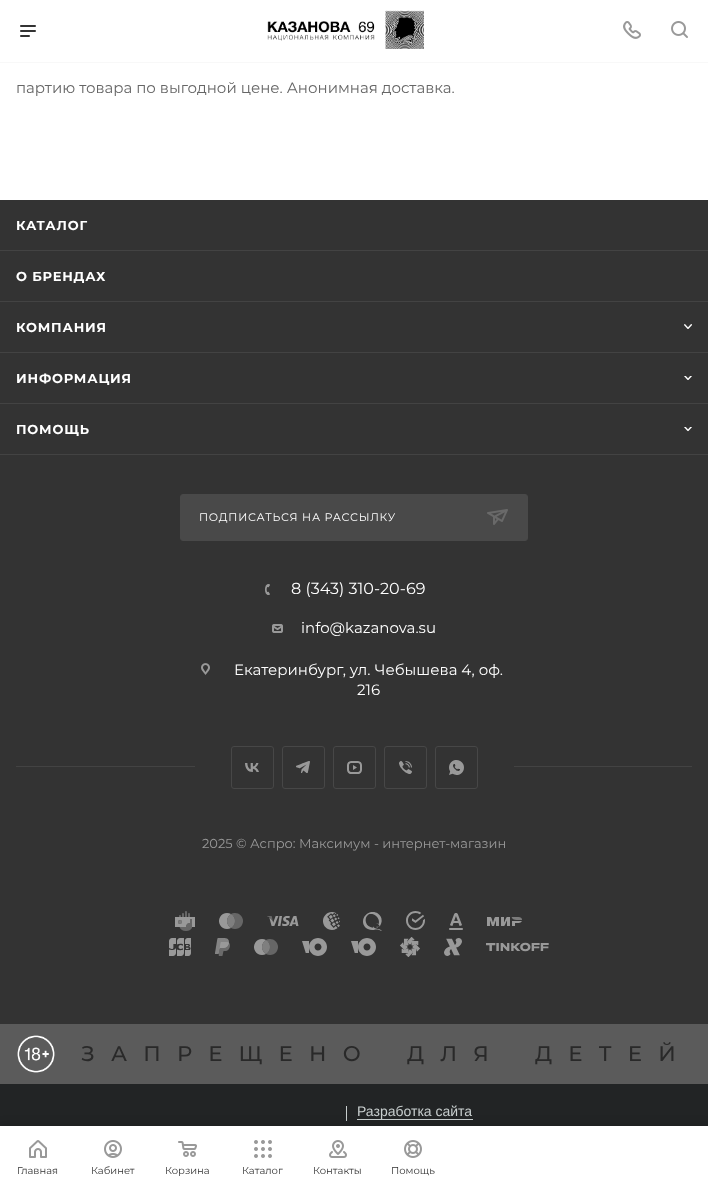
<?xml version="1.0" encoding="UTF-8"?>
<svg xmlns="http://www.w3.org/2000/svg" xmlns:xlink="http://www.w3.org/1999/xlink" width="708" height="1188">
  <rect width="100%" height="100%" fill="#5b5b5b" />
  <rect width="708" height="62" fill="#ffffff" />
  <rect y="62" width="708" height="1" fill="#f8f8f8" />
  <image x="20" y="25" width="16" height="12" xlink:href="image1.png" />
  <image x="267" y="10" width="157" height="39" xlink:href="image2.png" />
  <image x="623" y="21" width="18" height="18" xlink:href="image3.png" />
  <image x="671" y="21" width="17" height="17" xlink:href="image4.png" />
  <rect y="63" width="708" height="137" fill="#ffffff" />
  <rect y="200" width="708" height="824" fill="#333333" />
  <rect y="250" width="708" height="1" fill="#434343" />
  <rect y="301" width="708" height="1" fill="#434343" />
  <rect y="352" width="708" height="1" fill="#434343" />
  <image x="684" y="324" width="8" height="5" xlink:href="image5.png" />
  <rect y="403" width="708" height="1" fill="#434343" />
  <image x="684" y="376" width="8" height="4" xlink:href="image6.png" />
  <rect y="454" width="708" height="1" fill="#434343" />
  <image x="684" y="427" width="8" height="5" xlink:href="image7.png" />
  <rect x="180.5" y="494.5" width="347" height="46" rx="2.5" fill="#494949" stroke="#494949" />
  <image x="487" y="509" width="21" height="16" xlink:href="image8.png" />
  <image x="265" y="584" width="5" height="11" xlink:href="image9.png" />
  <image x="272" y="624" width="11" height="9" xlink:href="image10.png" />
  <image x="201" y="663" width="9" height="12" xlink:href="image11.png" />
  <rect x="16" y="766" width="676" height="1" fill="#434343" />
  <rect x="195" y="766" width="319" height="1" fill="#333333" />
  <image x="245" y="763" width="14" height="9" xlink:href="image12.png" />
  <rect x="231.5" y="746.5" width="42" height="42" rx="2.5" fill="none" stroke="#474747" />
  <image x="296" y="761" width="14" height="12" xlink:href="image13.png" />
  <rect x="282.5" y="746.5" width="42" height="42" rx="2.5" fill="none" stroke="#474747" />
  <image x="347" y="761" width="15" height="13" xlink:href="image14.png" />
  <rect x="333.5" y="746.5" width="42" height="42" rx="2.5" fill="none" stroke="#474747" />
  <image x="399" y="761" width="13" height="13" xlink:href="image15.png" />
  <rect x="384.5" y="746.5" width="42" height="42" rx="2.5" fill="none" stroke="#474747" />
  <image x="449" y="760" width="15" height="15" xlink:href="image16.png" />
  <rect x="435.5" y="746.5" width="42" height="42" rx="2.5" fill="none" stroke="#474747" />
  <image x="175" y="911" width="20" height="20" xlink:href="image17.png" />
  <image x="219" y="913" width="24" height="16" xlink:href="image18.png" />
  <image x="267" y="916" width="32" height="10" xlink:href="image19.png" />
  <image x="323" y="912" width="17" height="18" xlink:href="image20.png" />
  <image x="363" y="912" width="19" height="19" xlink:href="image21.png" />
  <image x="406" y="911" width="19" height="19" xlink:href="image22.png" />
  <image x="449" y="913" width="14" height="17" xlink:href="image23.png" />
  <image x="487" y="917" width="35" height="9" xlink:href="image24.png" />
  <image x="169" y="938" width="22" height="18" xlink:href="image25.png" />
  <image x="215" y="938" width="15" height="18" xlink:href="image26.png" />
  <image x="254" y="939" width="24" height="16" xlink:href="image27.png" />
  <image x="302" y="938" width="25" height="18" xlink:href="image28.png" />
  <image x="351" y="938" width="25" height="18" xlink:href="image28.png" />
  <image x="400" y="937" width="20" height="20" xlink:href="image29.png" />
  <image x="444" y="938" width="18" height="18" xlink:href="image30.png" />
  <image x="486" y="942" width="63" height="10" xlink:href="image31.png" />
  <image x="17" y="1035" width="38" height="38" xlink:href="image32.png" />
  <rect y="1084" width="708" height="42" fill="#222425" />
  <rect x="346" y="1106" width="1" height="15" fill="#c8cece" />
  <rect x="357" y="1119" width="116" height="1" fill="#c8cece" />
  <rect y="1124" width="708" height="62" fill="#000000" fill-opacity="0.15" filter="blur(4px)" />
  <rect y="1126" width="708" height="62" fill="#ffffff" />
  <image x="29" y="1140" width="18" height="18" xlink:href="image33.png" />
  <image x="104" y="1140" width="18" height="18" xlink:href="image34.png" />
  <image x="178" y="1141" width="19" height="16" xlink:href="image35.png" />
  <image x="254" y="1140" width="18" height="18" xlink:href="image36.png" />
  <image x="329" y="1140" width="18" height="18" xlink:href="image37.png" />
  <image x="404" y="1140" width="18" height="18" xlink:href="image38.png" />
  <text x="16" y="93" style="font-family: Montserrat; font-size: 15px; fill: #666666">партию товара по выгодной цене. Анонимная доставка.</text>
  <text x="16" y="230" style="font-family: Montserrat; font-size: 13px; font-weight: bold; letter-spacing: 0.8px; fill: #ffffff">КАТАЛОГ</text>
  <text x="16" y="281" style="font-family: Montserrat; font-size: 13px; font-weight: bold; letter-spacing: 0.8px; fill: #ffffff">О БРЕНДАХ</text>
  <text x="16" y="332" style="font-family: Montserrat; font-size: 13px; font-weight: bold; letter-spacing: 0.8px; fill: #ffffff">КОМПАНИЯ</text>
  <text x="16" y="383" style="font-family: Montserrat; font-size: 13px; font-weight: bold; letter-spacing: 0.8px; fill: #ffffff">ИНФОРМАЦИЯ</text>
  <text x="16" y="434" style="font-family: Montserrat; font-size: 13px; font-weight: bold; letter-spacing: 0.8px; fill: #ffffff">ПОМОЩЬ</text>
  <text x="199" y="521" style="font-family: Montserrat; font-size: 11px; letter-spacing: 0.8px; fill: #ffffff">ПОДПИСАТЬСЯ НА РАССЫЛКУ</text>
  <text x="291" y="594" style="font-family: Montserrat; font-size: 16px; fill: #ffffff">8 (343) 310-20-69</text>
  <text x="301" y="633" style="font-family: Montserrat; font-size: 15px; fill: #ffffff">info@kazanova.su</text>
  <text x="234" y="675" style="font-family: Montserrat; font-size: 15px; fill: #ffffff">Екатеринбург, ул. Чебышева 4, оф.</text>
  <text x="357" y="695" style="font-family: Montserrat; font-size: 15px; fill: #ffffff">216</text>
  <text x="202" y="848" style="font-family: Montserrat; font-size: 13px; fill: #999999">2025 © Аспро: Максимум - интернет-магазин</text>
  <text x="81" y="1061" style="font-family: Montserrat; font-size: 21.25px; font-weight: 500; letter-spacing: 16.25px; fill: #292929">ЗАПРЕЩЕНО</text>
  <text x="407" y="1061" style="font-family: Montserrat; font-size: 21.25px; font-weight: 500; letter-spacing: 16.25px; fill: #292929">ДЛЯ</text>
  <text x="535" y="1061" style="font-family: Montserrat; font-size: 21.25px; font-weight: 500; letter-spacing: 16.25px; fill: #292929">ДЕТЕЙ</text>
  <text x="357" y="1116" style="font-family: Liberation Sans; font-size: 14px; fill: #c8cece">Разработка сайта</text>
  <text x="17" y="1174" style="font-family: Montserrat; font-size: 10px; fill: #333333">Главная</text>
  <text x="91" y="1174" style="font-family: Montserrat; font-size: 10px; fill: #333333">Кабинет</text>
  <text x="165" y="1174" style="font-family: Montserrat; font-size: 10px; fill: #333333">Корзина</text>
  <text x="242" y="1174" style="font-family: Montserrat; font-size: 10px; fill: #333333">Каталог</text>
  <text x="313" y="1174" style="font-family: Montserrat; font-size: 10px; fill: #333333">Контакты</text>
  <text x="391" y="1174" style="font-family: Montserrat; font-size: 10px; fill: #333333">Помощь</text>
</svg>
